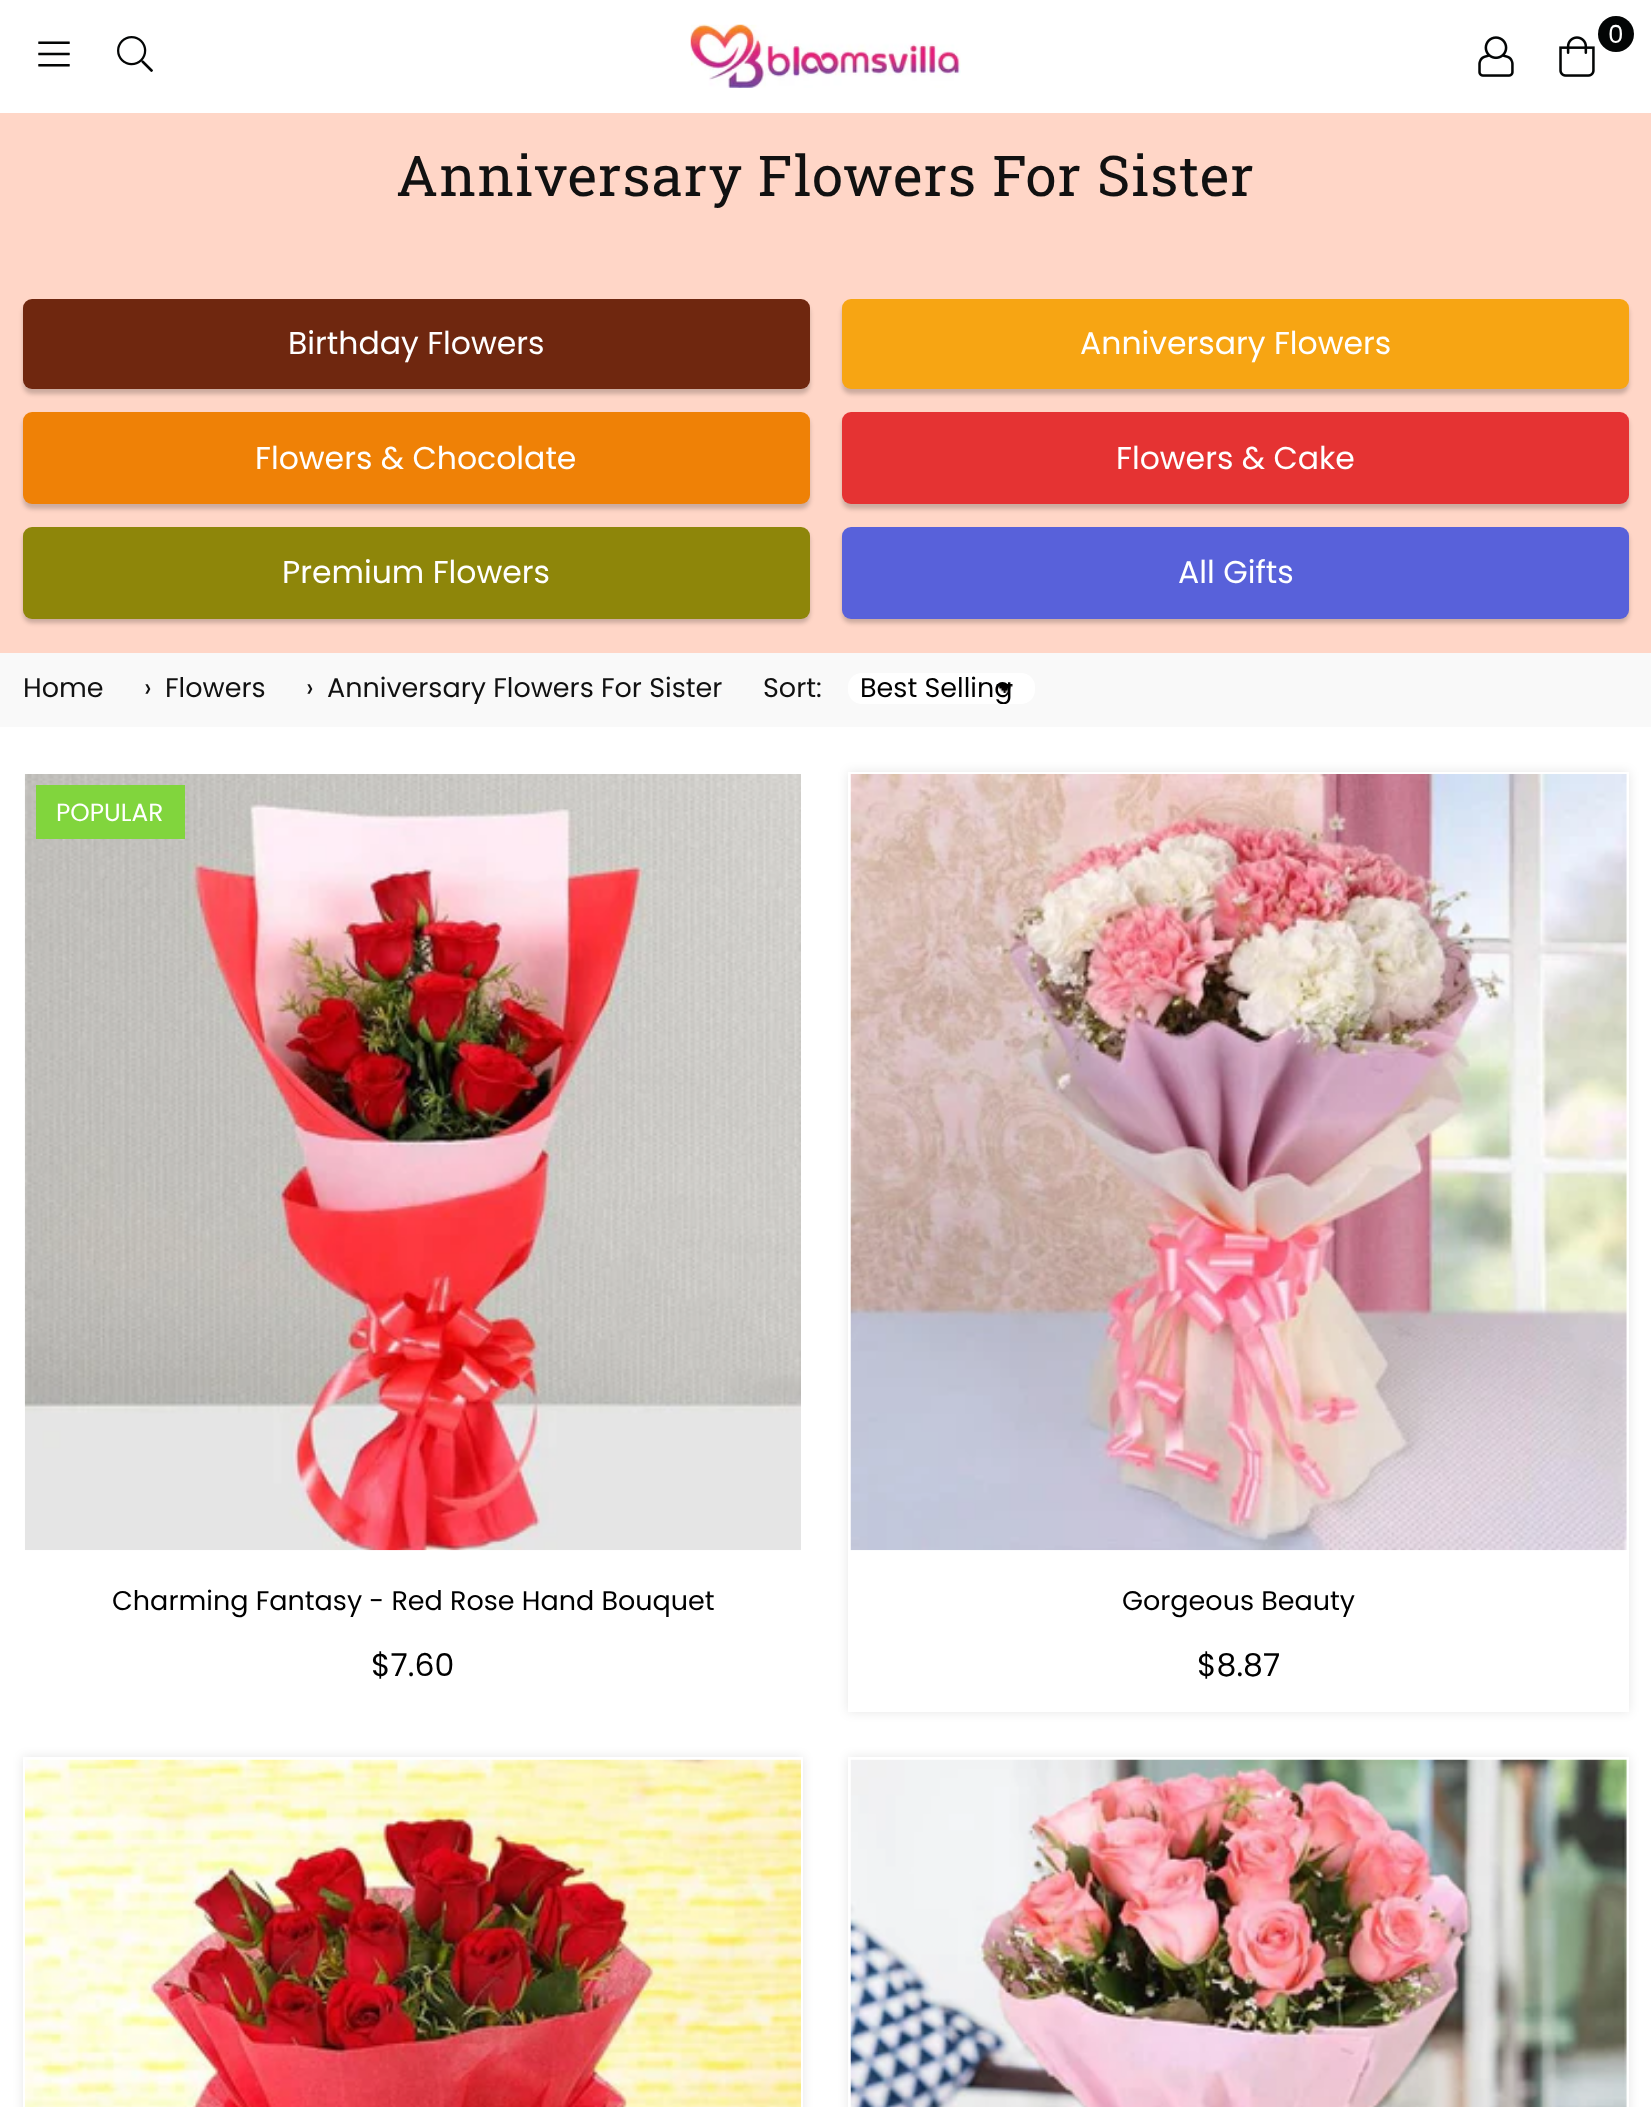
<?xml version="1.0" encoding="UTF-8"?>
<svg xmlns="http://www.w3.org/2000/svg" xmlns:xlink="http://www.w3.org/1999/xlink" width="1651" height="2107">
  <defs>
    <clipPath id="clip1"><path d="M 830 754 h 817 v 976 h -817 z m 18 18 h 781 v 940 h -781 z" clip-rule="evenodd" /></clipPath>
    <clipPath id="clip2"><path d="M 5 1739 h 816 v 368 h -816 z m 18 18 h 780 v 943 h -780 z" clip-rule="evenodd" /></clipPath>
    <clipPath id="clip3"><path d="M 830 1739 h 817 v 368 h -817 z m 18 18 h 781 v 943 h -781 z" clip-rule="evenodd" /></clipPath>
    <clipPath id="clip4"><rect x="860" y="673" width="175" height="31" /></clipPath>
  </defs>
  <rect width="100%" height="100%" fill="#ffffff" />
  <image x="690" y="24" width="271" height="64" xlink:href="image1.png" />
  <circle cx="1616" cy="34" r="18" fill="#030505" />
  <image x="1559" y="36" width="36" height="41" xlink:href="image2.png" />
  <image x="1478" y="36" width="36" height="41" xlink:href="image3.png" />
  <image x="38" y="41" width="32" height="26" xlink:href="image4.png" />
  <image x="117" y="36" width="36" height="36" xlink:href="image5.png" />
  <rect y="113" width="1651" height="540" fill="#ffd6c7" />
  <rect x="23" y="304" width="787" height="90" rx="9" fill="#000000" fill-opacity="0.2" filter="blur(2px)" />
  <rect x="23" y="299" width="787" height="90" rx="9" fill="#6f270f" />
  <rect x="842" y="304" width="787" height="90" rx="9" fill="#000000" fill-opacity="0.2" filter="blur(2px)" />
  <rect x="842" y="299" width="787" height="90" rx="9" fill="#f7a513" />
  <rect x="23" y="416" width="787" height="93" rx="9" fill="#000000" fill-opacity="0.2" filter="blur(2px)" />
  <rect x="23" y="412" width="787" height="92" rx="9" fill="#ef8106" />
  <rect x="842" y="416" width="787" height="93" rx="9" fill="#000000" fill-opacity="0.2" filter="blur(2px)" />
  <rect x="842" y="412" width="787" height="92" rx="9" fill="#e53333" />
  <rect x="23" y="531" width="787" height="92" rx="9" fill="#000000" fill-opacity="0.2" filter="blur(2px)" />
  <rect x="23" y="527" width="787" height="92" rx="9" fill="#8e860a" />
  <rect x="842" y="531" width="787" height="92" rx="9" fill="#000000" fill-opacity="0.2" filter="blur(2px)" />
  <rect x="842" y="527" width="787" height="92" rx="9" fill="#5861da" />
  <rect y="653" width="1651" height="74" fill="#f9f9f9" />
  <rect x="848" y="673" width="187" height="31" rx="14" fill="#ffffff" />
  <image x="996" y="684" width="17" height="9" xlink:href="image6.png" />
  <image x="24" y="774" width="777" height="777" xlink:href="image7.png" />
  <rect x="36" y="785" width="149" height="54" fill="#81d53d" />
  <g clip-path="url(#clip1)">
    <rect x="848" y="772" width="781" height="940" fill="#000000" fill-opacity="0.1" filter="blur(5.5px)" />
  </g>
  <image x="850" y="774" width="777" height="777" xlink:href="image8.png" />
  <g clip-path="url(#clip2)">
    <rect x="23" y="1757" width="780" height="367" fill="#000000" fill-opacity="0.1" filter="blur(5.5px)" />
  </g>
  <image x="24" y="1759" width="777" height="348" xlink:href="image9.png" />
  <g clip-path="url(#clip3)">
    <rect x="848" y="1757" width="781" height="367" fill="#000000" fill-opacity="0.1" filter="blur(5.5px)" />
  </g>
  <image x="850" y="1759" width="777" height="348" xlink:href="image10.png" />
  <text x="1608" y="43" style="font-family: Poppins; font-size: 24.75px; fill: #ffffff">0</text>
  <text x="396" y="196" style="font-family: Roboto Slab; font-size: 56.25px; letter-spacing: 1.1px; fill: #111111">Anniversary Flowers For Sister</text>
  <text x="288" y="354" style="font-family: Poppins; font-size: 31.5px; fill: #ffffff">Birthday Flowers</text>
  <text x="1080" y="354" style="font-family: Poppins; font-size: 31.5px; fill: #ffffff">Anniversary Flowers</text>
  <text x="255" y="469" style="font-family: Poppins; font-size: 31.5px; fill: #ffffff">Flowers &amp; Chocolate</text>
  <text x="1116" y="469" style="font-family: Poppins; font-size: 31.5px; fill: #ffffff">Flowers &amp; Cake</text>
  <text x="282" y="583" style="font-family: Poppins; font-size: 31.5px; fill: #ffffff">Premium Flowers</text>
  <text x="1178" y="583" style="font-family: Poppins; font-size: 31.5px; fill: #ffffff">All Gifts</text>
  <text x="23" y="697" style="font-family: Poppins; font-size: 27px; fill: #111111">Home</text>
  <text x="144" y="697" style="font-family: Poppins; font-size: 27px; fill: #111111">›</text>
  <text x="165" y="697" style="font-family: Poppins; font-size: 27px; fill: #111111">Flowers</text>
  <text x="306" y="697" style="font-family: Poppins; font-size: 27px; fill: #111111">›</text>
  <text x="327" y="697" style="font-family: Poppins; font-size: 27px; fill: #111111">Anniversary Flowers For Sister</text>
  <text x="763" y="697" style="font-family: Poppins; font-size: 27px; fill: #111111">Sort:</text>
  <g clip-path="url(#clip4)">
    <text x="860" y="697" style="font-family: Poppins; font-size: 27px; fill: #000000">Best Selling</text>
  </g>
  <text x="56" y="821" style="font-family: Poppins; font-size: 24.75px; fill: #ffffff">POPULAR</text>
  <text x="112" y="1610" style="font-family: Poppins; font-size: 27px; fill: #000000">Charming Fantasy - Red Rose Hand Bouquet</text>
  <text x="371" y="1676" style="font-family: Poppins; font-size: 31.5px; fill: #000000">$7.60</text>
  <text x="1122" y="1610" style="font-family: Poppins; font-size: 27px; fill: #000000">Gorgeous Beauty</text>
  <text x="1197" y="1676" style="font-family: Poppins; font-size: 31.5px; fill: #000000">$8.87</text>
</svg>
